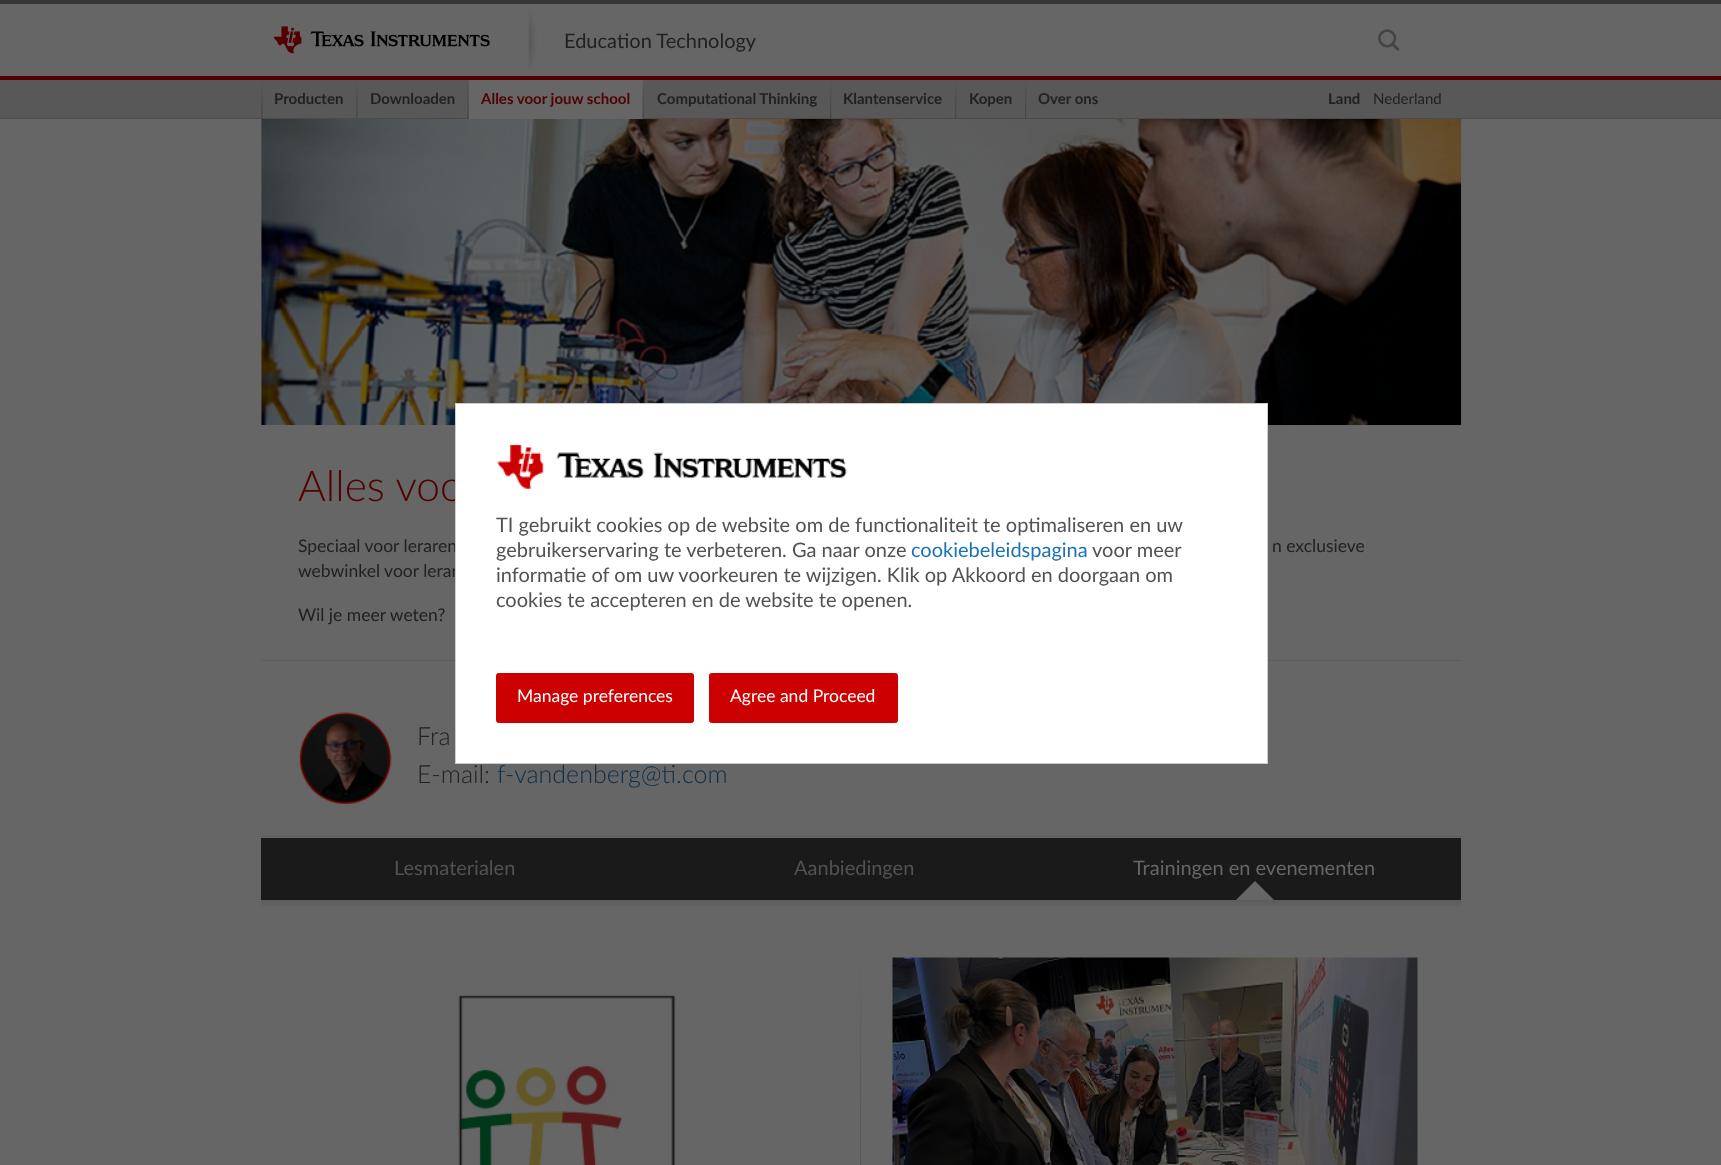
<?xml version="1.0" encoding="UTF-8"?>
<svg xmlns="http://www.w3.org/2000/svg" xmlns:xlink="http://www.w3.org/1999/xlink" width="1721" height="1165">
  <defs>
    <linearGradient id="g1" gradientUnits="userSpaceOnUse" x1="861" y1="900" x2="861" y2="908"><stop offset="0" stop-color="#5c5c5c" /><stop offset="0.25" stop-color="#5e5e5e" /><stop offset="1" stop-color="#666666" /></linearGradient>
    <linearGradient id="g2" gradientUnits="userSpaceOnUse" x1="709" y1="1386" x2="1012" y2="1083"><stop offset="0" stop-color="#666666" /><stop offset="0.5" stop-color="#525252" /><stop offset="1" stop-color="#666666" /></linearGradient>
  </defs>
  <rect width="100%" height="100%" fill="#666666" />
  <rect width="1721" height="4" fill="#363636" />
  <rect y="76" width="1721" height="4" fill="#520000" />
  <image x="528" y="9" width="9" height="62" xlink:href="image1.png" />
  <image x="274" y="26" width="216" height="28" xlink:href="image2.png" />
  <path d="M 1398 49.5 l -5.5 -5.5 m 0 0 c 7.5 -7.5 -3.5 -18.5 -11 -11 c -7 7 4 18 11 11 z" fill="none" stroke="#444444" stroke-width="2.6" stroke-linecap="round" stroke-linejoin="round" />
  <rect y="80" width="1721" height="38" fill="#585858" />
  <rect y="118" width="1721" height="1" fill="#4b4b4b" />
  <image x="261" y="83" width="2" height="36" xlink:href="image3.png" />
  <image x="356" y="83" width="2" height="36" xlink:href="image4.png" />
  <rect x="469" y="80" width="174" height="39" fill="#666666" />
  <image x="467" y="83" width="2" height="36" xlink:href="image5.png" />
  <image x="642" y="83" width="2" height="36" xlink:href="image6.png" />
  <image x="830" y="82" width="2" height="37" xlink:href="image7.png" />
  <image x="955" y="82" width="2" height="37" xlink:href="image8.png" />
  <image x="1025" y="82" width="2" height="37" xlink:href="image8.png" />
  <image x="261" y="119" width="1201" height="306" xlink:href="image9.png" />
  <rect x="261" y="660" width="1200" height="1" fill="#5c5c5c" />
  <rect x="261" y="836" width="1200" height="1" fill="#5c5c5c" />
  <image x="299" y="712" width="93" height="93" xlink:href="image10.png" />
  <rect x="261" y="838" width="1200" height="62" fill="#1a1a1a" />
  <path d="M 1274 900 h -38 l 19 -19 z" fill="#666666" />
  <rect x="261" y="900" width="1200" height="6" fill="url(#g1)" />
  <image x="455" y="994" width="221" height="171" xlink:href="image11.png" />
  <rect x="860" y="969" width="1" height="196" fill="url(#g2)" />
  <image x="892" y="957" width="526" height="208" xlink:href="image12.png" />
  <text x="564" y="48" style="font-family: Lato; font-size: 20px; fill: #212121">Education Technology</text>
  <text x="274" y="104" style="font-family: Lato; font-size: 15px; font-weight: bold; fill: #212121">Producten</text>
  <text x="370" y="104" style="font-family: Lato; font-size: 15px; font-weight: bold; fill: #212121">Downloaden</text>
  <text x="481" y="104" style="font-family: Lato; font-size: 15px; font-weight: bold; fill: #520000">Alles voor jouw school</text>
  <text x="657" y="104" style="font-family: Lato; font-size: 15px; font-weight: bold; fill: #212121">Computational Thinking</text>
  <text x="843" y="104" style="font-family: Lato; font-size: 15px; font-weight: bold; fill: #212121">Klantenservice</text>
  <text x="969" y="104" style="font-family: Lato; font-size: 15px; font-weight: bold; fill: #212121">Kopen</text>
  <text x="1038" y="104" style="font-family: Lato; font-size: 15px; font-weight: bold; fill: #212121">Over ons</text>
  <text x="1328" y="104" style="font-family: Lato; font-size: 15px; font-weight: bold; fill: #212121">Land</text>
  <text x="1373" y="104" style="font-family: Lato; font-size: 15px; fill: #212121">Nederland</text>
  <text x="298" y="501" style="font-family: Lato; font-size: 42.5px; font-weight: 300; fill: #520000">Alles voo</text>
  <text x="298" y="552" style="font-family: Lato; font-size: 17.5px; fill: #212121">Speciaal voor leraren</text>
  <text x="1272" y="552" style="font-family: Lato; font-size: 17.5px; fill: #212121">n exclusieve</text>
  <text x="298" y="577" style="font-family: Lato; font-size: 17.5px; fill: #212121">webwinkel voor lerar</text>
  <text x="298" y="621" style="font-family: Lato; font-size: 17.5px; fill: #212121">Wil je meer weten?</text>
  <text x="417" y="745" style="font-family: Lato; font-size: 25px; font-weight: 300; fill: #212121">Fra</text>
  <text x="417" y="783" style="font-family: Lato; font-size: 25px; font-weight: 300; fill: #212121">E-mail:</text>
  <text x="497" y="783" style="font-family: Lato; font-size: 25px; font-weight: 300; fill: #0a2e48">f-vandenberg@ti.com</text>
  <text x="394" y="875" style="font-family: Lato; font-size: 20px; fill: #525252">Lesmaterialen</text>
  <text x="794" y="875" style="font-family: Lato; font-size: 20px; fill: #525252">Aanbiedingen</text>
  <text x="1133" y="875" style="font-family: Lato; font-size: 20px; fill: #666666">Trainingen en evenementen</text>
  <rect x="455.5" y="403.5" width="812" height="360" fill="#ffffff" stroke="#cccccc" />
  <image x="497" y="444" width="350" height="45" xlink:href="image13.png" />
  <text x="496" y="532" style="font-family: Lato; font-size: 20px; fill: #525252">TI gebruikt cookies op de website om de functionaliteit te optimaliseren en uw</text>
  <text x="496" y="557" style="font-family: Lato; font-size: 20px; fill: #525252">gebruikerservaring te verbeteren. Ga naar onze</text>
  <text x="911" y="557" style="font-family: Lato; font-size: 20px; fill: #1973b4">cookiebeleidspagina</text>
  <text x="1092" y="557" style="font-family: Lato; font-size: 20px; fill: #525252">voor meer</text>
  <text x="496" y="582" style="font-family: Lato; font-size: 20px; fill: #525252">informatie of om uw voorkeuren te wijzigen. Klik op Akkoord en doorgaan om</text>
  <text x="496" y="607" style="font-family: Lato; font-size: 20px; fill: #525252">cookies te accepteren en de website te openen.</text>
  <rect x="496.5" y="673.5" width="197" height="49" rx="2" fill="#cc0000" stroke="#cc0000" />
  <text x="517" y="702" style="font-family: Lato; font-size: 17.5px; fill: #ffffff">Manage preferences</text>
  <rect x="709.5" y="673.5" width="188" height="49" rx="2" fill="#cc0000" stroke="#cc0000" />
  <text x="730" y="702" style="font-family: Lato; font-size: 17.5px; fill: #ffffff">Agree and Proceed</text>
</svg>
